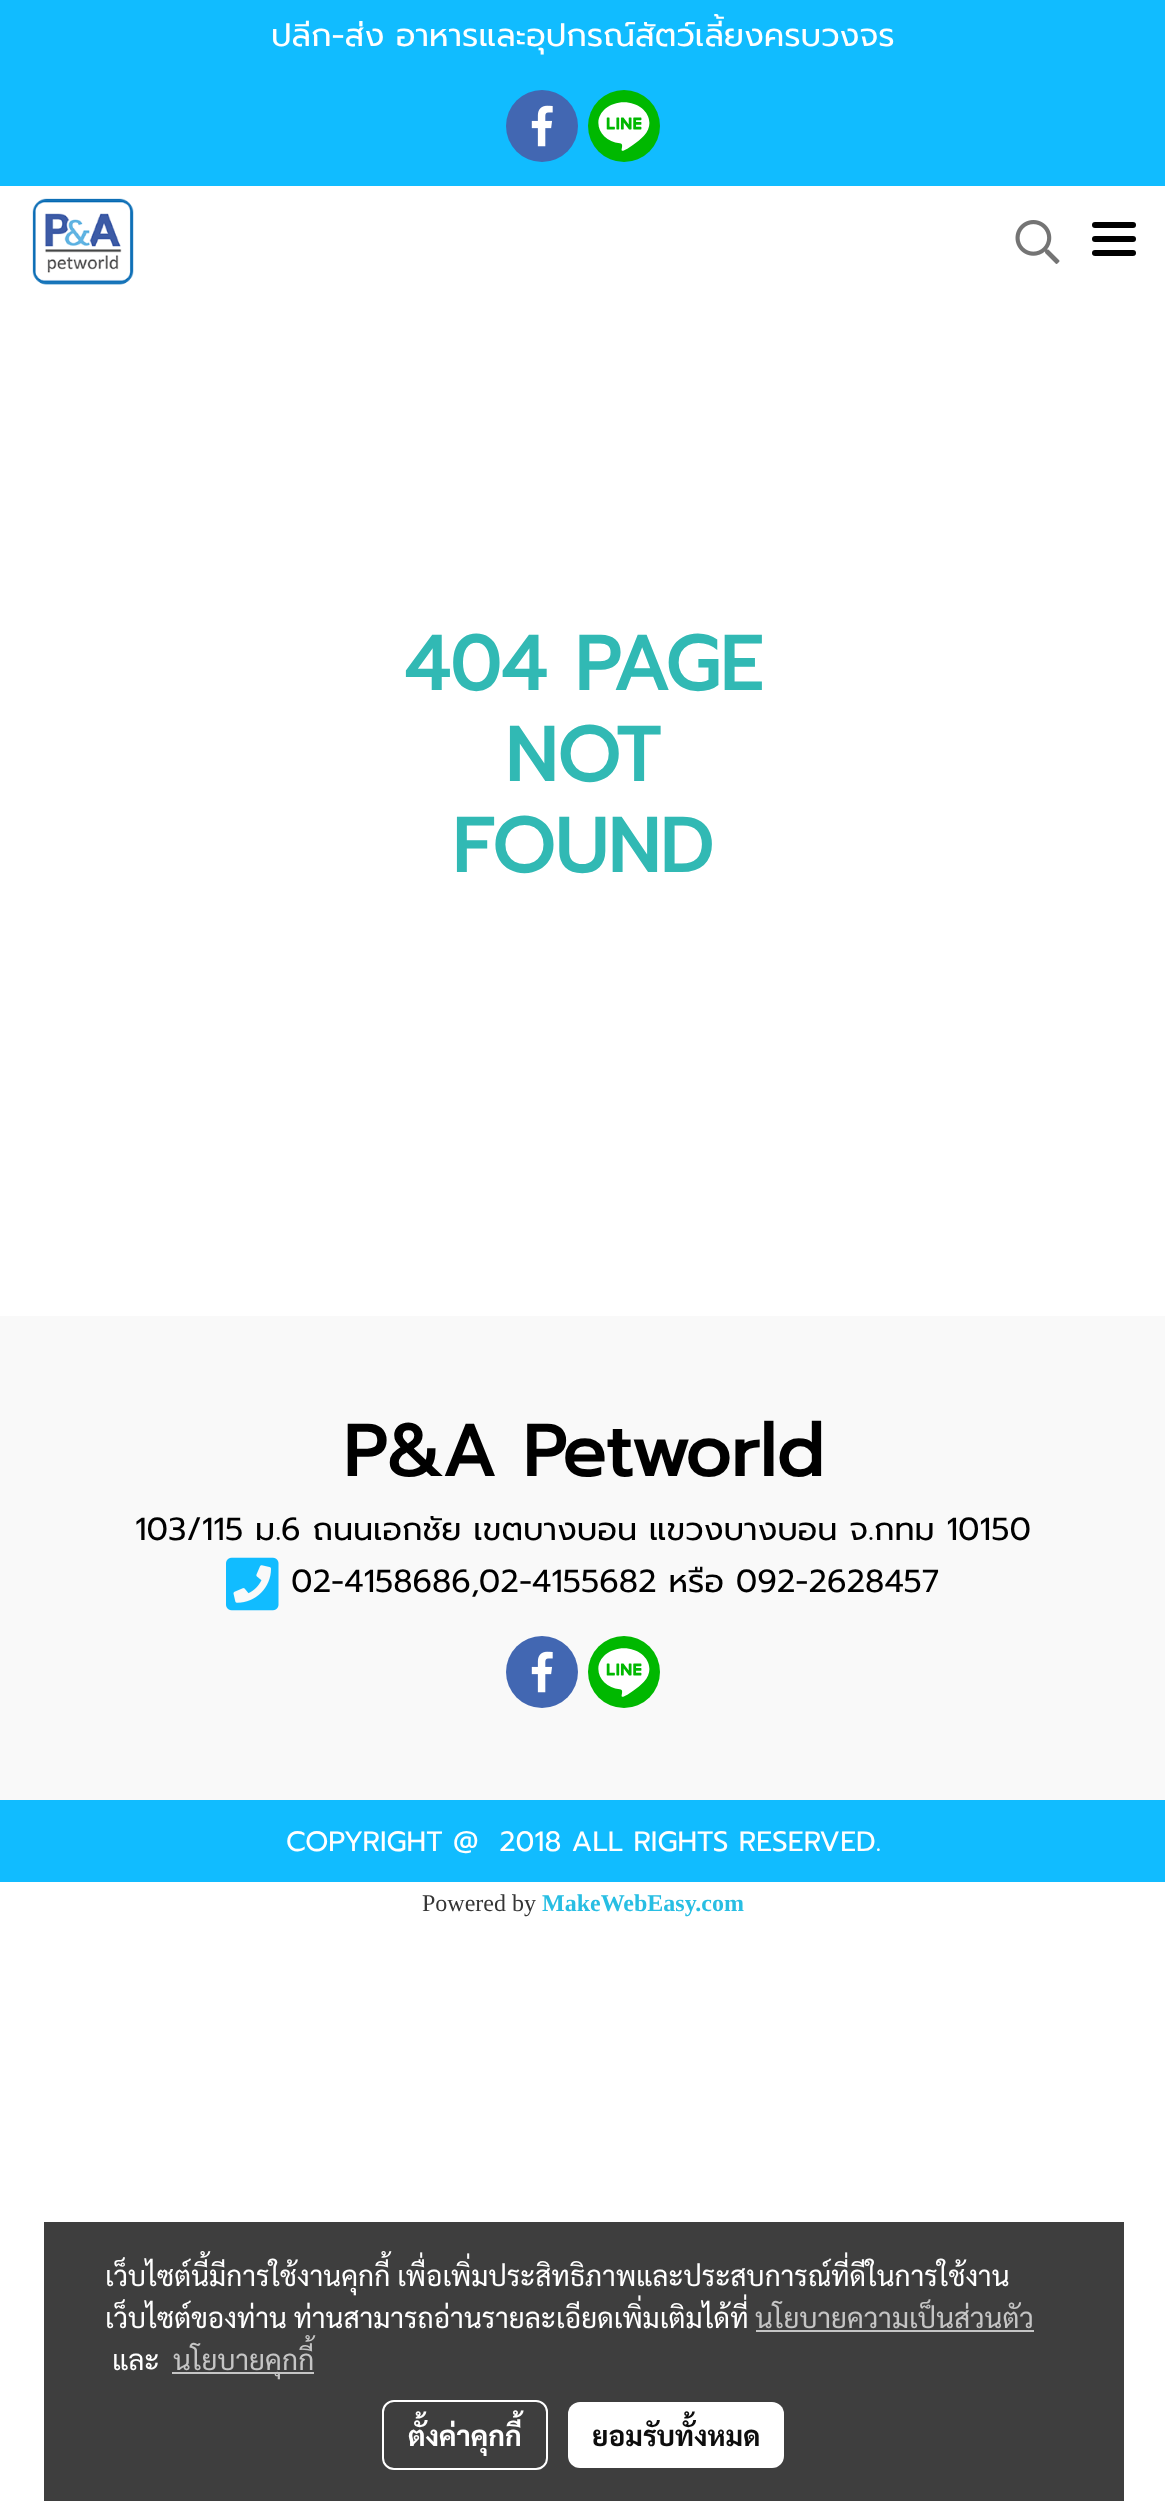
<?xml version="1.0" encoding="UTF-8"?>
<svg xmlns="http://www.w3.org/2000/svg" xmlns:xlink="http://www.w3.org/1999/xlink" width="1165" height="2501">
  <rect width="100%" height="100%" fill="#ffffff" />
  <rect width="1165" height="186" fill="#11bcff" />
  <circle cx="542" cy="126" r="36" fill="#4267b2" />
  <image x="531" y="105" width="22" height="42" xlink:href="image1.png" />
  <circle cx="624" cy="126" r="36" fill="#00b800" />
  <image x="598" y="102" width="52" height="49" xlink:href="image2.png" />
  <image x="32" y="198" width="102" height="87" xlink:href="image3.png" />
  <image x="1015" y="220" width="45" height="44" xlink:href="image4.png" />
  <rect x="1092" y="236" width="44" height="6" rx="3" fill="#000000" />
  <rect x="1092" y="222" width="44" height="6" rx="3" fill="#000000" />
  <rect x="1092" y="250" width="44" height="6" rx="3" fill="#000000" />
  <rect y="1316" width="1165" height="484" fill="#f9f9f9" />
  <image x="226" y="1557" width="53" height="54" xlink:href="image5.png" />
  <circle cx="542" cy="1672" r="36" fill="#4267b2" />
  <image x="531" y="1651" width="22" height="42" xlink:href="image1.png" />
  <circle cx="624" cy="1672" r="36" fill="#00b800" />
  <image x="598" y="1648" width="52" height="49" xlink:href="image6.png" />
  <rect y="1800" width="1165" height="82" fill="#11bcff" />
  <rect x="44" y="2222" width="1080" height="279" fill="#3e3e3e" />
  <rect x="756" y="2330" width="278" height="2" fill="#c5c5c5" />
  <rect x="172" y="2372" width="142" height="2" fill="#c5c5c5" />
  <rect x="383" y="2401" width="164" height="68" rx="11" fill="none" stroke="#ffffff" stroke-width="2" />
  <rect x="568" y="2402" width="216" height="66" rx="12" fill="#ffffff" />
  <text x="271" y="46" style="font-family: Prompt; font-size: 32px; fill: #ffffff">ปลีก-ส่ง อาหารและอุปกรณ์สัตว์เลี้ยงครบวงจร</text>
  <text x="404" y="690" style="font-family: Prompt; font-size: 76px; font-weight: bold; fill: #31b9b4">404 PAGE</text>
  <text x="505" y="781" style="font-family: Prompt; font-size: 76px; font-weight: bold; fill: #31b9b4">NOT</text>
  <text x="452" y="872" style="font-family: Prompt; font-size: 76px; font-weight: bold; fill: #31b9b4">FOUND</text>
  <text x="343" y="1476" style="font-family: Prompt; font-size: 72px; font-weight: bold; fill: #000000">P&amp;A Petworld</text>
  <text x="135" y="1540" style="font-family: Prompt; font-size: 32px; fill: #000000">103/115 ม.6 ถนนเอกชัย เขตบางบอน แขวงบางบอน จ.กทม 10150</text>
  <text x="291" y="1592" style="font-family: Prompt; font-size: 32px; fill: #000000">02-4158686,02-4155682 หรือ 092-2628457</text>
  <text x="286" y="1851" style="font-family: Prompt; font-size: 28px; fill: #ffffff" xml:space="preserve">COPYRIGHT @  2018 ALL RIGHTS RESERVED.</text>
  <text x="422" y="1911" style="font-family: Liberation Serif; font-size: 24px; fill: #353535">Powered by</text>
  <text x="542" y="1911" style="font-family: Liberation Serif; font-size: 24px; font-weight: bold; fill: #28bee3">MakeWebEasy.com</text>
  <text x="105" y="2286" style="font-family: Sarabun; font-size: 28px; fill: #ffffff">เว็บไซต์นี้มีการใช้งานคุกกี้ เพื่อเพิ่มประสิทธิภาพและประสบการณ์ที่ดีในการใช้งาน</text>
  <text x="105" y="2328" style="font-family: Sarabun; font-size: 28px; fill: #ffffff">เว็บไซต์ของท่าน ท่านสามารถอ่านรายละเอียดเพิ่มเติมได้ที่</text>
  <text x="755" y="2328" style="font-family: Sarabun; font-size: 28px; fill: #c5c5c5">นโยบายความเป็นส่วนตัว</text>
  <text x="112" y="2370" style="font-family: Sarabun; font-size: 28px; fill: #ffffff">และ</text>
  <text x="173" y="2370" style="font-family: Sarabun; font-size: 28px; fill: #c5c5c5">นโยบายคุกกี้</text>
  <text x="408" y="2446" style="font-family: Sarabun; font-size: 28px; font-weight: bold; fill: #ffffff">ตั้งค่าคุกกี้</text>
  <text x="592" y="2446" style="font-family: Sarabun; font-size: 28px; font-weight: bold; fill: #0d0d0d">ยอมรับทั้งหมด</text>
</svg>
